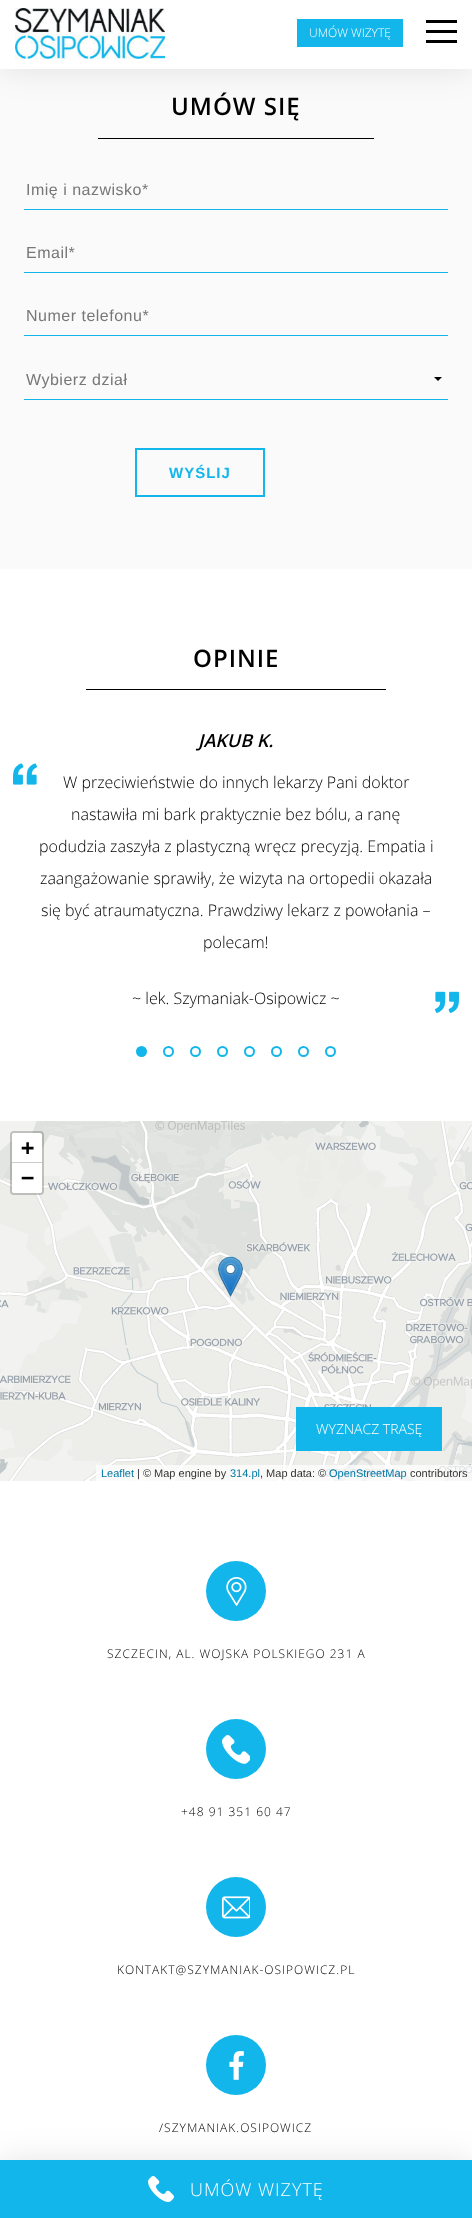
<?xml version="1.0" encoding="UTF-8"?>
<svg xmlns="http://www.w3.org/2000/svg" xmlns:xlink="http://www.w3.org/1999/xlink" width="472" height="2218">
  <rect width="100%" height="100%" fill="#ffffff" />
  <rect y="69" width="472" height="500" fill="#fafafa" />
  <rect width="472" height="69" fill="#000000" fill-opacity="0.1" filter="blur(16px)" />
  <rect width="472" height="69" fill="#ffffff" />
  <image x="15" y="8" width="150" height="51" xlink:href="image1.png" />
  <rect x="297" y="19" width="106" height="28" fill="#13b6eb" />
  <rect x="426" y="20" width="31" height="3" fill="#000000" />
  <rect x="426" y="30" width="31" height="3" fill="#000000" />
  <rect x="426" y="40" width="31" height="3" fill="#000000" />
  <rect x="98" y="138" width="276" height="1" fill="#000000" />
  <rect x="24" y="209" width="424" height="1" fill="#13b6eb" />
  <rect x="24" y="272" width="424" height="1" fill="#13b6eb" />
  <rect x="24" y="335" width="424" height="1" fill="#13b6eb" />
  <path d="M 438 381 l -4 -4 h 8 z" fill="#000000" />
  <rect x="24" y="399" width="424" height="1" fill="#13b6eb" />
  <rect x="136" y="449" width="128" height="47" fill="none" stroke="#13b6eb" stroke-width="2" />
  <rect x="86" y="689" width="300" height="1" fill="#000000" />
  <image x="13" y="763" width="24" height="22" xlink:href="image2.png" />
  <image x="435" y="991" width="24" height="22" xlink:href="image3.png" />
  <circle cx="141.5" cy="1051.5" r="4.5" fill="#13b6eb" stroke="#13b6eb" stroke-width="2" />
  <circle cx="168.5" cy="1051.5" r="4.5" fill="none" stroke="#13b6eb" stroke-width="2" />
  <circle cx="195.5" cy="1051.5" r="4.5" fill="none" stroke="#13b6eb" stroke-width="2" />
  <circle cx="222.5" cy="1051.5" r="4.5" fill="none" stroke="#13b6eb" stroke-width="2" />
  <circle cx="249.5" cy="1051.5" r="4.5" fill="none" stroke="#13b6eb" stroke-width="2" />
  <circle cx="276.5" cy="1051.5" r="4.5" fill="none" stroke="#13b6eb" stroke-width="2" />
  <circle cx="303.5" cy="1051.5" r="4.5" fill="none" stroke="#13b6eb" stroke-width="2" />
  <circle cx="330.5" cy="1051.5" r="4.5" fill="none" stroke="#13b6eb" stroke-width="2" />
  <image x="0" y="1121" width="200" height="4" xlink:href="image4.png" />
  <image x="200" y="1121" width="256" height="4" xlink:href="image5.png" />
  <rect x="456" y="1121" width="16" height="4" fill="#f2f3f0" />
  <image x="0" y="1125" width="200" height="256" xlink:href="image6.png" />
  <image x="200" y="1125" width="256" height="256" xlink:href="image7.png" />
  <image x="456" y="1125" width="16" height="256" xlink:href="image8.png" />
  <image x="0" y="1381" width="200" height="100" xlink:href="image9.png" />
  <image x="200" y="1381" width="256" height="100" xlink:href="image10.png" />
  <image x="456" y="1381" width="16" height="100" xlink:href="image11.png" />
  <image x="218" y="1256" width="25" height="41" xlink:href="image12.png" />
  <rect x="11" y="1132" width="32" height="62" rx="3" fill="none" stroke="#000000" stroke-opacity="0.2" stroke-width="2" />
  <path d="M 14 1133 h 26 c 1 0 2 1 2 2 v 28 h -30 v -28 c 0 -1 1 -2 2 -2 z" fill="#ffffff" />
  <rect x="12" y="1162" width="30" height="1" fill="#cccccc" />
  <path d="M 12 1163 h 30 v 28 c 0 1 -1 2 -2 2 h -26 c -1 0 -2 -1 -2 -2 z" fill="#ffffff" />
  <rect x="96" y="1465" width="376" height="16" fill="#ffffff" fill-opacity="0.7" />
  <rect x="296" y="1407" width="146" height="44" fill="#13b6eb" />
  <circle cx="236" cy="1591" r="28.5" fill="none" stroke="#e7f8fd" />
  <circle cx="236" cy="1591" r="30" fill="#13b6eb" />
  <image x="226" y="1577" width="21" height="29" xlink:href="image13.png" />
  <circle cx="236" cy="1749" r="28.5" fill="none" stroke="#e7f8fd" />
  <circle cx="236" cy="1749" r="30" fill="#13b6eb" />
  <image x="222" y="1735" width="28" height="29" xlink:href="image14.png" />
  <circle cx="236" cy="1907" r="28.5" fill="none" stroke="#e7f8fd" />
  <circle cx="236" cy="1907" r="30" fill="#13b6eb" />
  <image x="222" y="1896" width="28" height="23" xlink:href="image15.png" />
  <circle cx="236" cy="2065" r="28.5" fill="none" stroke="#e7f8fd" />
  <circle cx="236" cy="2065" r="30" fill="#13b6eb" />
  <image x="229" y="2051" width="15" height="29" xlink:href="image16.png" />
  <rect y="2160" width="472" height="58" fill="#000000" fill-opacity="0.1" filter="blur(16px)" />
  <rect y="2160" width="472" height="58" fill="#13b6eb" />
  <image x="148" y="2176" width="26" height="26" xlink:href="image17.png" />
  <text x="309" y="37" style="font-family: Open Sans; font-size: 12px; font-weight: 300; fill: #ffffff">UMÓW WIZYTĘ</text>
  <text x="171" y="115" style="font-family: Open Sans; font-size: 24px; font-weight: 600; letter-spacing: 1px; fill: #000000">UMÓW SIĘ</text>
  <text x="26" y="195" style="font-family: Liberation Sans; font-size: 16px; letter-spacing: 0.5px; fill: #777777">Imię i nazwisko*</text>
  <text x="26" y="258" style="font-family: Liberation Sans; font-size: 16px; letter-spacing: 0.5px; fill: #777777">Email*</text>
  <text x="26" y="321" style="font-family: Liberation Sans; font-size: 16px; letter-spacing: 0.5px; fill: #777777">Numer telefonu*</text>
  <text x="26" y="385" style="font-family: Liberation Sans; font-size: 16px; letter-spacing: 0.5px; fill: #777777">Wybierz dział</text>
  <text x="169" y="478" style="font-family: Liberation Sans; font-size: 15px; font-weight: bold; letter-spacing: 1px; fill: #13b6eb">WYŚLIJ</text>
  <text x="193" y="667" style="font-family: Open Sans; font-size: 24px; font-weight: 600; letter-spacing: 1px; fill: #000000">OPINIE</text>
  <text x="198" y="747" style="font-family: Open Sans; font-size: 18px; font-weight: 600; font-style: italic; fill: #000000">JAKUB K.</text>
  <text x="63" y="788" style="font-family: Open Sans; font-size: 16px; font-weight: 300; fill: #000000">W przeciwieństwie do innych lekarzy Pani doktor</text>
  <text x="71" y="820" style="font-family: Open Sans; font-size: 16px; font-weight: 300; fill: #000000">nastawiła mi bark praktycznie bez bólu, a ranę</text>
  <text x="39" y="852" style="font-family: Open Sans; font-size: 16px; font-weight: 300; fill: #000000">podudzia zaszyła z plastyczną wręcz precyzją. Empatia i</text>
  <text x="40" y="884" style="font-family: Open Sans; font-size: 16px; font-weight: 300; fill: #000000">zaangażowanie sprawiły, że wizyta na ortopedii okazała</text>
  <text x="41" y="916" style="font-family: Open Sans; font-size: 16px; font-weight: 300; fill: #000000">się być atraumatyczna. Prawdziwy lekarz z powołania –</text>
  <text x="203" y="948" style="font-family: Open Sans; font-size: 16px; font-weight: 300; fill: #000000">polecam!</text>
  <text x="132" y="1004" style="font-family: Open Sans; font-size: 16px; font-weight: 300; fill: #000000">~ lek. Szymaniak-Osipowicz ~</text>
  <text x="21" y="1155" style="font-family: DejaVu Sans Mono; font-size: 22px; font-weight: bold; fill: #000000">+</text>
  <text x="21" y="1185" style="font-family: DejaVu Sans Mono; font-size: 22px; font-weight: bold; fill: #000000">−</text>
  <text x="101" y="1477" style="font-family: Liberation Sans; font-size: 11px; fill: #0078a8">Leaflet</text>
  <text x="137" y="1477" style="font-family: Liberation Sans; font-size: 11px; fill: #333333">| © Map engine by</text>
  <text x="230" y="1477" style="font-family: Liberation Sans; font-size: 11px; fill: #0078a8">314.pl</text>
  <text x="260" y="1477" style="font-family: Liberation Sans; font-size: 11px; fill: #333333">, Map data: ©</text>
  <text x="329" y="1477" style="font-family: Liberation Sans; font-size: 11px; fill: #0078a8">OpenStreetMap</text>
  <text x="410" y="1477" style="font-family: Liberation Sans; font-size: 11px; fill: #333333">contributors</text>
  <text x="316" y="1434" style="font-family: Open Sans; font-size: 14px; font-weight: 300; fill: #ffffff">WYZNACZ TRASĘ</text>
  <text x="107" y="1658" style="font-family: Open Sans; font-size: 12px; font-weight: 300; letter-spacing: 1px; fill: #000000">SZCZECIN, AL. WOJSKA POLSKIEGO 231 A</text>
  <text x="181" y="1816" style="font-family: Open Sans; font-size: 12px; font-weight: 300; letter-spacing: 1px; fill: #000000">+48 91 351 60 47</text>
  <text x="117" y="1974" style="font-family: Open Sans; font-size: 12px; font-weight: 300; letter-spacing: 1px; fill: #000000">KONTAKT@SZYMANIAK-OSIPOWICZ.PL</text>
  <text x="159" y="2132" style="font-family: Open Sans; font-size: 12px; font-weight: 300; letter-spacing: 1px; fill: #000000">/SZYMANIAK.OSIPOWICZ</text>
  <text x="190" y="2196" style="font-family: Open Sans; font-size: 18px; font-weight: 300; letter-spacing: 1px; fill: #ffffff">UMÓW WIZYTĘ</text>
</svg>
